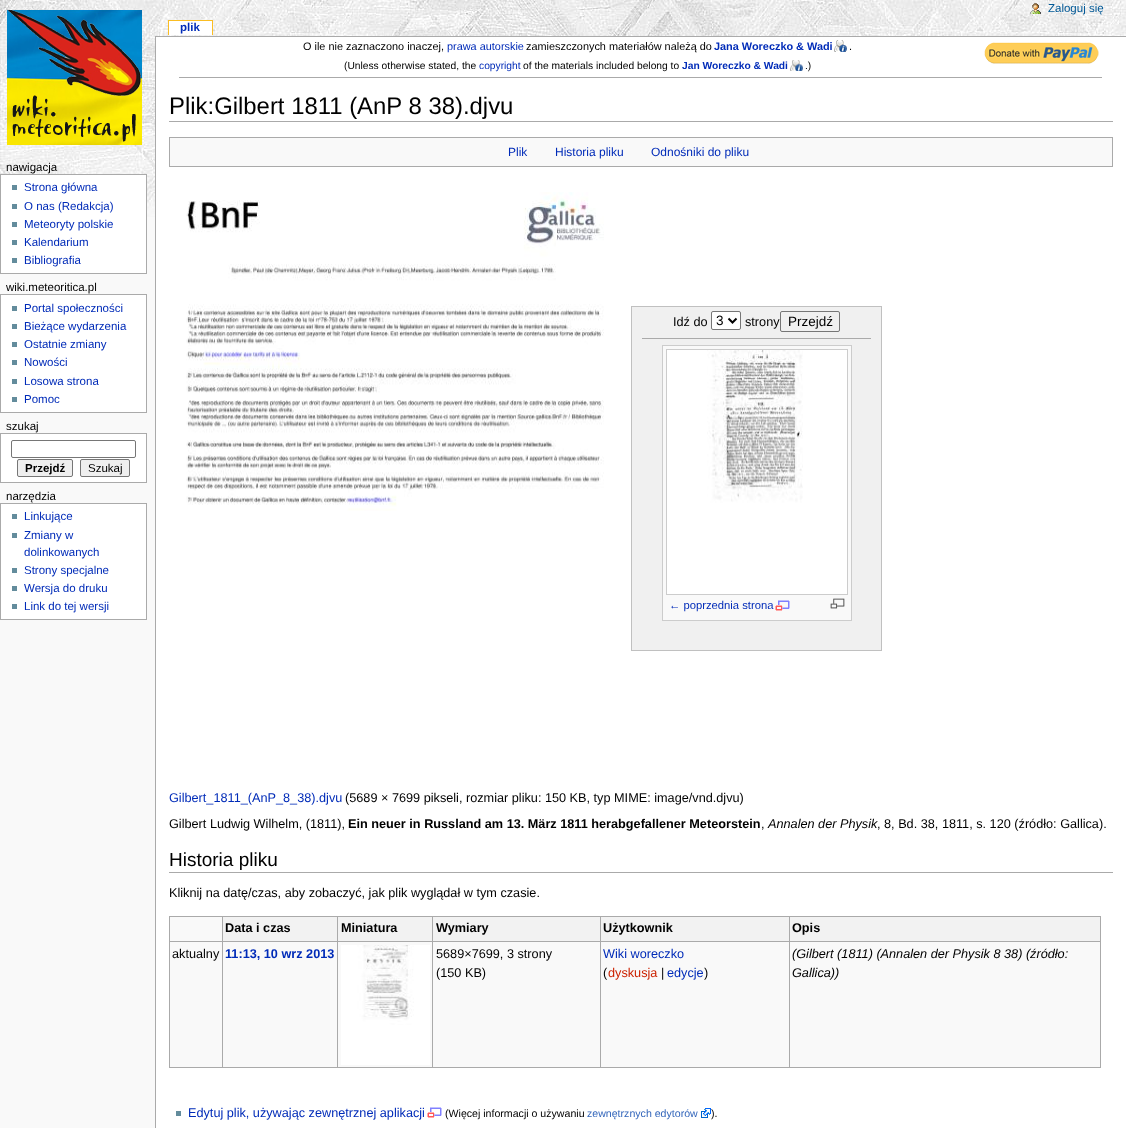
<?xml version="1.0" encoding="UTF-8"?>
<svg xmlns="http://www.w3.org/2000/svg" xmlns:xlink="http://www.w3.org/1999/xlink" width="1126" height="1128">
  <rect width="100%" height="100%" fill="#f9f9f9" />
  <image x="0" y="0" width="1126" height="217" xlink:href="image1.png" />
  <image x="7" y="10" width="135" height="135" xlink:href="image2.png" />
  <rect x="169" y="21" width="43" height="14" fill="#ffffff" />
  <rect x="168" y="20" width="45" height="1" fill="#fabd23" />
  <rect x="212" y="20" width="1" height="15" fill="#fabd23" />
  <rect x="168" y="20" width="1" height="15" fill="#fabd23" />
  <image x="1030" y="3" width="11" height="11" xlink:href="image3.png" />
  <rect x="0.5" y="174.5" width="146" height="99" fill="#ffffff" stroke="#aaaaaa" />
  <rect x="12" y="185" width="5" height="5" fill="#638c9c" />
  <rect x="12" y="204" width="5" height="5" fill="#638c9c" />
  <rect x="12" y="222" width="5" height="5" fill="#638c9c" />
  <rect x="12" y="240" width="5" height="5" fill="#638c9c" />
  <rect x="12" y="258" width="5" height="5" fill="#638c9c" />
  <rect x="0.5" y="294.5" width="146" height="118" fill="#ffffff" stroke="#aaaaaa" />
  <rect x="12" y="306" width="5" height="5" fill="#638c9c" />
  <rect x="12" y="324" width="5" height="5" fill="#638c9c" />
  <rect x="12" y="342" width="5" height="5" fill="#638c9c" />
  <rect x="12" y="360" width="5" height="5" fill="#638c9c" />
  <rect x="12" y="379" width="5" height="5" fill="#638c9c" />
  <rect x="12" y="397" width="5" height="5" fill="#638c9c" />
  <rect x="0.5" y="433.5" width="146" height="49" fill="#ffffff" stroke="#aaaaaa" />
  <rect x="11.5" y="440.5" width="124" height="17" rx="1.5" fill="none" stroke="#767676" />
  <rect x="17.5" y="459.5" width="55" height="17" rx="1.5" fill="#efefef" stroke="#767676" />
  <rect x="80.5" y="459.5" width="49" height="17" rx="1.5" fill="#efefef" stroke="#767676" />
  <rect x="0.5" y="503.5" width="146" height="116" fill="#ffffff" stroke="#aaaaaa" />
  <rect x="12" y="514" width="5" height="5" fill="#638c9c" />
  <rect x="12" y="533" width="5" height="5" fill="#638c9c" />
  <rect x="12" y="568" width="5" height="5" fill="#638c9c" />
  <rect x="12" y="586" width="5" height="5" fill="#638c9c" />
  <rect x="12" y="604" width="5" height="5" fill="#638c9c" />
  <rect x="156" y="37" width="970" height="1091" fill="#ffffff" />
  <rect x="155" y="36" width="971" height="1" fill="#aaaaaa" />
  <rect x="155" y="36" width="1" height="1092" fill="#aaaaaa" />
  <image x="834" y="40" width="13" height="12" xlink:href="image4.png" />
  <image x="984" y="42" width="115" height="22" xlink:href="image5.png" />
  <image x="790" y="60" width="13" height="11" xlink:href="image6.png" />
  <rect x="179" y="77" width="923" height="1" fill="#aaaaaa" />
  <rect x="169" y="121" width="944" height="1" fill="#aaaaaa" />
  <rect x="169.5" y="137.5" width="943" height="29" fill="#f9f9f9" stroke="#aaaaaa" />
  <image x="186" y="192" width="418" height="319" xlink:href="image7.png" />
  <rect x="631.5" y="306.5" width="250" height="344" fill="#f0f0f0" stroke="#c0c0c0" />
  <rect x="711.5" y="311.5" width="29" height="18" rx="1.5" fill="#ffffff" stroke="#767676" />
  <path d="M 728.5 318.5 l 4 4 l 4 -4" fill="none" stroke="#000000" stroke-width="2" />
  <rect x="780.5" y="311.5" width="59" height="20" rx="1.5" fill="none" stroke="#767676" />
  <rect x="642" y="338" width="229" height="1" fill="#aaaaaa" />
  <rect x="662.5" y="345.5" width="189" height="275" fill="#f9f9f9" stroke="#cccccc" />
  <rect x="666.5" y="349.5" width="181" height="245" fill="none" stroke="#cccccc" />
  <image x="667" y="350" width="180" height="244" xlink:href="image8.png" />
  <image x="775" y="600" width="15" height="11" xlink:href="image9.png" />
  <image x="830" y="598" width="15" height="11" xlink:href="image10.png" />
  <rect x="169" y="872" width="944" height="1" fill="#aaaaaa" />
  <rect x="170" y="917" width="930" height="150" fill="#f9f9f9" />
  <rect x="169" y="916" width="932" height="1" fill="#aaaaaa" />
  <rect x="1100" y="916" width="1" height="152" fill="#aaaaaa" />
  <rect x="169" y="1067" width="932" height="1" fill="#aaaaaa" />
  <rect x="169" y="916" width="1" height="152" fill="#aaaaaa" />
  <rect x="223" y="917" width="114" height="24" fill="#f2f2f2" />
  <rect x="789" y="941" width="312" height="1" fill="#aaaaaa" />
  <rect x="789" y="941" width="1" height="127" fill="#aaaaaa" />
  <rect x="600" y="941" width="190" height="1" fill="#aaaaaa" />
  <rect x="600" y="941" width="1" height="127" fill="#aaaaaa" />
  <rect x="432" y="941" width="169" height="1" fill="#aaaaaa" />
  <rect x="432" y="941" width="1" height="127" fill="#aaaaaa" />
  <rect x="337" y="941" width="96" height="1" fill="#aaaaaa" />
  <rect x="337" y="941" width="1" height="127" fill="#aaaaaa" />
  <rect x="222" y="941" width="116" height="1" fill="#aaaaaa" />
  <rect x="222" y="941" width="1" height="127" fill="#aaaaaa" />
  <rect x="169" y="941" width="54" height="1" fill="#aaaaaa" />
  <rect x="222" y="916" width="1" height="26" fill="#aaaaaa" />
  <rect x="338" y="917" width="94" height="24" fill="#f2f2f2" />
  <rect x="337" y="916" width="1" height="26" fill="#aaaaaa" />
  <rect x="433" y="917" width="167" height="24" fill="#f2f2f2" />
  <rect x="432" y="916" width="1" height="26" fill="#aaaaaa" />
  <rect x="601" y="917" width="188" height="24" fill="#f2f2f2" />
  <rect x="600" y="916" width="1" height="26" fill="#aaaaaa" />
  <rect x="790" y="917" width="310" height="24" fill="#f2f2f2" />
  <rect x="789" y="916" width="1" height="26" fill="#aaaaaa" />
  <image x="341" y="945" width="89" height="120" xlink:href="image11.png" />
  <rect x="176" y="1111" width="5" height="5" fill="#638c9c" />
  <image x="427" y="1107" width="15" height="11" xlink:href="image12.png" />
  <image x="701" y="1108" width="10" height="10" xlink:href="image13.png" />
  <text x="180" y="31" style="font-family: Liberation Sans; font-size: 11.5px; font-weight: bold; fill: #002bb8">plik</text>
  <text x="1048" y="12" style="font-family: Liberation Sans; font-size: 11.5px; fill: #005896">Zaloguj się</text>
  <text x="6" y="171" style="font-family: Liberation Sans; font-size: 11.5px; fill: #000000">nawigacja</text>
  <text x="24" y="191" style="font-family: Liberation Sans; font-size: 11.5px; fill: #002bb8">Strona główna</text>
  <text x="24" y="210" style="font-family: Liberation Sans; font-size: 11.5px; fill: #002bb8">O nas (Redakcja)</text>
  <text x="24" y="228" style="font-family: Liberation Sans; font-size: 11.5px; fill: #002bb8">Meteoryty polskie</text>
  <text x="24" y="246" style="font-family: Liberation Sans; font-size: 11.5px; fill: #002bb8">Kalendarium</text>
  <text x="24" y="264" style="font-family: Liberation Sans; font-size: 11.5px; fill: #002bb8">Bibliografia</text>
  <text x="6" y="291" style="font-family: Liberation Sans; font-size: 11.5px; fill: #000000">wiki.meteoritica.pl</text>
  <text x="24" y="312" style="font-family: Liberation Sans; font-size: 11.5px; fill: #002bb8">Portal społeczności</text>
  <text x="24" y="330" style="font-family: Liberation Sans; font-size: 11.5px; fill: #002bb8">Bieżące wydarzenia</text>
  <text x="24" y="348" style="font-family: Liberation Sans; font-size: 11.5px; fill: #002bb8">Ostatnie zmiany</text>
  <text x="24" y="366" style="font-family: Liberation Sans; font-size: 11.5px; fill: #002bb8">Nowości</text>
  <text x="24" y="385" style="font-family: Liberation Sans; font-size: 11.5px; fill: #002bb8">Losowa strona</text>
  <text x="24" y="403" style="font-family: Liberation Sans; font-size: 11.5px; fill: #002bb8">Pomoc</text>
  <text x="6" y="430" style="font-family: Liberation Sans; font-size: 11.5px; fill: #000000">szukaj</text>
  <text x="25" y="472" style="font-family: Liberation Sans; font-size: 11.5px; font-weight: bold; fill: #000000">Przejdź</text>
  <text x="88" y="472" style="font-family: Liberation Sans; font-size: 11.5px; fill: #000000">Szukaj</text>
  <text x="6" y="500" style="font-family: Liberation Sans; font-size: 11.5px; fill: #000000">narzędzia</text>
  <text x="24" y="520" style="font-family: Liberation Sans; font-size: 11.5px; fill: #002bb8">Linkujące</text>
  <text x="24" y="539" style="font-family: Liberation Sans; font-size: 11.5px; fill: #002bb8">Zmiany w</text>
  <text x="24" y="556" style="font-family: Liberation Sans; font-size: 11.5px; fill: #002bb8">dolinkowanych</text>
  <text x="24" y="574" style="font-family: Liberation Sans; font-size: 11.5px; fill: #002bb8">Strony specjalne</text>
  <text x="24" y="592" style="font-family: Liberation Sans; font-size: 11.5px; fill: #002bb8">Wersja do druku</text>
  <text x="24" y="610" style="font-family: Liberation Sans; font-size: 11.5px; fill: #002bb8">Link do tej wersji</text>
  <text x="303" y="50" style="font-family: Liberation Sans; font-size: 10.9px; fill: #000000">O ile nie zaznaczono inaczej,</text>
  <text x="447" y="50" style="font-family: Liberation Sans; font-size: 10.9px; fill: #002bb8">prawa autorskie</text>
  <text x="526" y="50" style="font-family: Liberation Sans; font-size: 10.9px; fill: #000000">zamieszczonych materiałów należą do</text>
  <text x="714" y="50" style="font-family: Liberation Sans; font-size: 10.9px; font-weight: bold; fill: #002bb8">Jana Woreczko &amp; Wadi</text>
  <text x="849" y="50" style="font-family: Liberation Sans; font-size: 10.9px; fill: #000000">.</text>
  <text x="344" y="69" style="font-family: Liberation Sans; font-size: 10.25px; fill: #000000">(Unless otherwise stated, the</text>
  <text x="479" y="69" style="font-family: Liberation Sans; font-size: 10.25px; fill: #002bb8">copyright</text>
  <text x="523" y="69" style="font-family: Liberation Sans; font-size: 10.25px; fill: #000000">of the materials included belong to</text>
  <text x="682" y="69" style="font-family: Liberation Sans; font-size: 10.25px; font-weight: bold; fill: #002bb8">Jan Woreczko &amp; Wadi</text>
  <text x="805" y="69" style="font-family: Liberation Sans; font-size: 10.25px; fill: #000000">.)</text>
  <text x="169" y="114" style="font-family: Liberation Sans; font-size: 23.9px; fill: #000000">Plik:Gilbert 1811 (AnP 8 38).djvu</text>
  <text x="508" y="156" style="font-family: Liberation Sans; font-size: 12px; fill: #002bb8">Plik</text>
  <text x="555" y="156" style="font-family: Liberation Sans; font-size: 12px; fill: #002bb8">Historia pliku</text>
  <text x="651" y="156" style="font-family: Liberation Sans; font-size: 12px; fill: #002bb8">Odnośniki do pliku</text>
  <text x="673" y="326" style="font-family: Liberation Sans; font-size: 12.7px; fill: #000000">Idź do</text>
  <text x="716" y="325" style="font-family: Liberation Sans; font-size: 13.5px; fill: #000000">3</text>
  <text x="745" y="326" style="font-family: Liberation Sans; font-size: 12.7px; fill: #000000">strony</text>
  <text x="788" y="326" style="font-family: Liberation Sans; font-size: 13.5px; fill: #000000">Przejdź</text>
  <text x="669" y="609" style="font-family: Liberation Sans; font-size: 11.25px; fill: #002bb8">← poprzednia strona</text>
  <text x="169" y="802" style="font-family: Liberation Sans; font-size: 12.7px; fill: #002bb8">Gilbert_1811_(AnP_8_38).djvu</text>
  <text x="345" y="802" style="font-family: Liberation Sans; font-size: 12.7px; fill: #000000">(5689 × 7699 pikseli, rozmiar pliku: 150 KB, typ MIME: image/vnd.djvu)</text>
  <text x="169" y="828" style="font-family: Liberation Sans; font-size: 12.7px; fill: #000000">Gilbert Ludwig Wilhelm, (1811),</text>
  <text x="348" y="828" style="font-family: Liberation Sans; font-size: 12.7px; font-weight: bold; fill: #000000">Ein neuer in Russland am 13. März 1811 herabgefallener Meteorstein</text>
  <text x="761" y="828" style="font-family: Liberation Sans; font-size: 12.7px; fill: #000000">,</text>
  <text x="768" y="828" style="font-family: Liberation Sans; font-size: 12.7px; font-style: italic; fill: #000000">Annalen der Physik</text>
  <text x="877" y="828" style="font-family: Liberation Sans; font-size: 12.7px; fill: #000000">, 8, Bd. 38, 1811, s. 120 (źródło: Gallica).</text>
  <text x="169" y="866" style="font-family: Liberation Sans; font-size: 19px; fill: #000000">Historia pliku</text>
  <text x="169" y="897" style="font-family: Liberation Sans; font-size: 12.7px; fill: #000000">Kliknij na datę/czas, aby zobaczyć, jak plik wyglądał w tym czasie.</text>
  <text x="225" y="932" style="font-family: Liberation Sans; font-size: 12.7px; font-weight: bold; fill: #000000">Data i czas</text>
  <text x="341" y="932" style="font-family: Liberation Sans; font-size: 12.7px; font-weight: bold; fill: #000000">Miniatura</text>
  <text x="436" y="932" style="font-family: Liberation Sans; font-size: 12.7px; font-weight: bold; fill: #000000">Wymiary</text>
  <text x="603" y="932" style="font-family: Liberation Sans; font-size: 12.7px; font-weight: bold; fill: #000000">Użytkownik</text>
  <text x="792" y="932" style="font-family: Liberation Sans; font-size: 12.7px; font-weight: bold; fill: #000000">Opis</text>
  <text x="172" y="958" style="font-family: Liberation Sans; font-size: 12.7px; fill: #000000">aktualny</text>
  <text x="225" y="958" style="font-family: Liberation Sans; font-size: 12.7px; font-weight: bold; fill: #002bb8">11:13, 10 wrz 2013</text>
  <text x="436" y="958" style="font-family: Liberation Sans; font-size: 12.7px; fill: #000000">5689×7699, 3 strony</text>
  <text x="436" y="977" style="font-family: Liberation Sans; font-size: 12.7px; fill: #000000">(150 KB)</text>
  <text x="603" y="958" style="font-family: Liberation Sans; font-size: 12.7px; fill: #002bb8">Wiki woreczko</text>
  <text x="603" y="977" style="font-family: Liberation Sans; font-size: 12.7px; fill: #000000">(</text>
  <text x="608" y="977" style="font-family: Liberation Sans; font-size: 12.7px; fill: #cc2200">dyskusja</text>
  <text x="661" y="977" style="font-family: Liberation Sans; font-size: 12.7px; fill: #000000">|</text>
  <text x="667" y="977" style="font-family: Liberation Sans; font-size: 12.7px; fill: #002bb8">edycje</text>
  <text x="704" y="977" style="font-family: Liberation Sans; font-size: 12.7px; fill: #000000">)</text>
  <text x="792" y="958" style="font-family: Liberation Sans; font-size: 12.7px; font-style: italic; fill: #000000">(Gilbert (1811) (Annalen der Physik 8 38) (źródło:</text>
  <text x="792" y="977" style="font-family: Liberation Sans; font-size: 12.7px; font-style: italic; fill: #000000">Gallica))</text>
  <text x="188" y="1117" style="font-family: Liberation Sans; font-size: 12.7px; fill: #002bb8">Edytuj plik, używając zewnętrznej aplikacji</text>
  <text x="445" y="1117" style="font-family: Liberation Sans; font-size: 10.6px; fill: #000000">(Więcej informacji o używaniu</text>
  <text x="587" y="1117" style="font-family: Liberation Sans; font-size: 10.6px; fill: #3366bb">zewnętrznych edytorów</text>
  <text x="711" y="1117" style="font-family: Liberation Sans; font-size: 10.6px; fill: #000000">).</text>
</svg>
